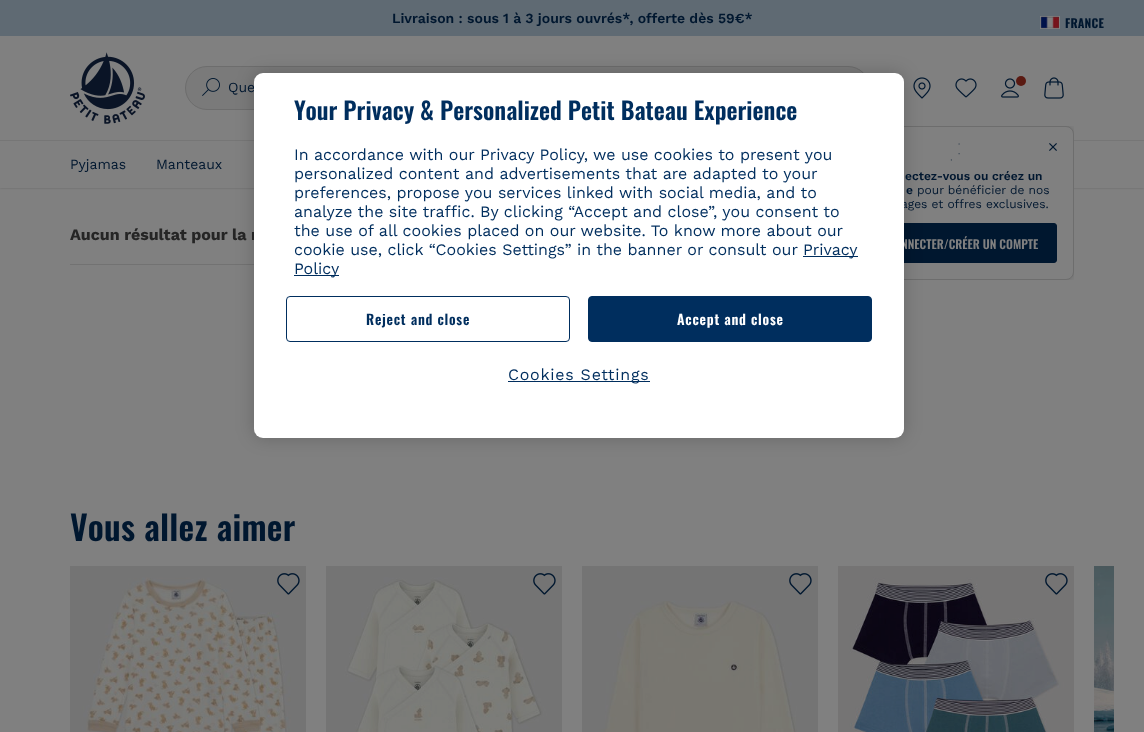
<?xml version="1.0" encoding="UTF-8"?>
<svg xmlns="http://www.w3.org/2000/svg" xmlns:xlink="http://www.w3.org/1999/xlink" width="1144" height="732">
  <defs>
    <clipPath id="clip1"><rect x="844" y="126" width="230" height="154" /></clipPath>
  </defs>
  <rect width="100%" height="100%" fill="#808080" />
  <rect width="1144" height="188" fill="#000000" fill-opacity="0.2" filter="blur(1px)" />
  <rect y="36" width="1144" height="152" fill="#808080" />
  <rect width="1144" height="36" fill="#5f6a73" />
  <rect x="1040.5" y="16.5" width="19" height="12" fill="none" stroke="#808080" />
  <image x="1040" y="16" width="19" height="13" xlink:href="image1.png" />
  <image x="70" y="52" width="75" height="72" xlink:href="image2.png" />
  <rect x="185.5" y="66.5" width="684" height="43" rx="21.5" fill="#7a7a7a" stroke="#6d6d6d" />
  <image x="202" y="78" width="18" height="18" xlink:href="image3.png" />
  <rect y="140" width="1144" height="1" fill="#767676" />
  <image x="913" y="77" width="18" height="22" xlink:href="image4.png" />
  <image x="955" y="78" width="22" height="20" xlink:href="image5.png" />
  <image x="1001" y="78" width="18" height="20" xlink:href="image6.png" />
  <circle cx="1021" cy="81" r="5" fill="#5a1a12" />
  <image x="1044" y="77" width="20" height="22" xlink:href="image7.png" />
  <g clip-path="url(#clip1)">
    <rect x="844" y="126" width="230" height="154" rx="8" fill="#000000" fill-opacity="0.14" filter="blur(3.5px)" />
  </g>
  <rect x="844.5" y="126.5" width="229" height="153" rx="7.5" fill="#808080" stroke="#6d6d6d" />
  <image x="950" y="143" width="10" height="18" xlink:href="image8.png" />
  <image x="1049" y="143" width="8" height="8" xlink:href="image9.png" />
  <rect x="861.5" y="223.5" width="195" height="39" rx="2.5" fill="#00172f" stroke="#00172f" />
  <rect x="70" y="264" width="184" height="1" fill="#727272" />
  <image x="70" y="566" width="236" height="166" xlink:href="image10.png" />
  <image x="277" y="573" width="23" height="22" xlink:href="image11.png" />
  <image x="326" y="566" width="236" height="166" xlink:href="image12.png" />
  <image x="533" y="573" width="23" height="22" xlink:href="image11.png" />
  <image x="582" y="566" width="236" height="166" xlink:href="image13.png" />
  <image x="789" y="573" width="23" height="22" xlink:href="image11.png" />
  <image x="838" y="566" width="236" height="166" xlink:href="image14.png" />
  <image x="1045" y="573" width="23" height="22" xlink:href="image15.png" />
  <image x="1094" y="566" width="20" height="166" xlink:href="image16.png" />
  <rect x="254" y="73" width="650" height="365" rx="9" fill="#000000" fill-opacity="0.2" filter="blur(9px)" />
  <text x="392" y="23" style="font-family: Work Sans; font-size: 14px; font-weight: 600; fill: #00172f">Livraison : sous 1 à 3 jours ouvrés*, offerte dès 59€*</text>
  <text x="1065" y="28" style="font-family: Oswald; font-size: 12px; font-weight: bold; letter-spacing: 0.25px; fill: #00172f">FRANCE</text>
  <text x="70" y="169" style="font-family: Work Sans; font-size: 14px; fill: #00172f">Pyjamas</text>
  <text x="156" y="169" style="font-family: Work Sans; font-size: 14px; fill: #00172f">Manteaux</text>
  <text x="228" y="92" style="font-family: Work Sans; font-size: 14px; fill: #00172f">Que</text>
  <text x="905" y="180" style="font-family: Work Sans; font-size: 12px; font-weight: 600; fill: #00172f">ectez-vous ou créez un</text>
  <text x="906" y="194" style="font-family: Work Sans; font-size: 12px; font-weight: 600; fill: #00172f">e</text>
  <text x="917" y="194" style="font-family: Work Sans; font-size: 12px; fill: #00172f">pour bénéficier de nos</text>
  <text x="901" y="208" style="font-family: Work Sans; font-size: 12px; fill: #00172f">ages et offres exclusives.</text>
  <text x="901" y="249" style="font-family: Oswald; font-size: 12px; font-weight: 600; fill: #808080">NNECTER/CRÉER UN COMPTE</text>
  <text x="70" y="240" style="font-family: Work Sans; font-size: 16px; font-weight: bold; fill: #252525">Aucun résultat pour la r</text>
  <text x="70" y="541" style="font-family: Oswald; font-size: 34px; font-weight: 600; letter-spacing: 0.25px; fill: #00172f">Vous allez aimer</text>
  <rect x="254" y="73" width="650" height="365" rx="9" fill="#ffffff" />
  <text x="294" y="120" style="font-family: Oswald; font-size: 24px; font-weight: 600; fill: #002e5e">Your Privacy &amp; Personalized Petit Bateau Experience</text>
  <text x="294" y="160" style="font-family: Work Sans; font-size: 16px; fill: #002e5e">In accordance with our Privacy Policy, we use cookies to present you</text>
  <text x="294" y="179" style="font-family: Work Sans; font-size: 16px; fill: #002e5e">personalized content and advertisements that are adapted to your</text>
  <text x="294" y="198" style="font-family: Work Sans; font-size: 16px; fill: #002e5e">preferences, propose you services linked with social media, and to</text>
  <text x="294" y="217" style="font-family: Work Sans; font-size: 16px; fill: #002e5e">analyze the site traffic. By clicking “Accept and close”, you consent to</text>
  <text x="294" y="236" style="font-family: Work Sans; font-size: 16px; fill: #002e5e">the use of all cookies placed on our website. To know more about our</text>
  <text x="294" y="255" style="font-family: Work Sans; font-size: 16px; fill: #002e5e">cookie use, click “Cookies Settings” in the banner or consult our</text>
  <rect x="803" y="256" width="55" height="1" fill="#002e5e" />
  <text x="803" y="255" style="font-family: Work Sans; font-size: 16px; fill: #002e5e">Privacy</text>
  <rect x="294" y="275" width="45" height="1" fill="#002e5e" />
  <text x="294" y="274" style="font-family: Work Sans; font-size: 16px; fill: #002e5e">Policy</text>
  <rect x="286.5" y="296.5" width="283" height="45" rx="3.5" fill="none" stroke="#002e5e" />
  <text x="366" y="325" style="font-family: Oswald; font-size: 14px; font-weight: 600; letter-spacing: 0.75px; fill: #002e5e">Reject and close</text>
  <rect x="588.5" y="296.5" width="283" height="45" rx="3.5" fill="#002e5e" stroke="#002e5e" />
  <text x="677" y="325" style="font-family: Oswald; font-size: 14px; font-weight: 600; letter-spacing: 0.75px; fill: #ffffff">Accept and close</text>
  <rect x="508" y="381" width="142" height="1" fill="#002e5e" />
  <text x="508" y="380" style="font-family: Work Sans; font-size: 16px; letter-spacing: 0.75px; fill: #002e5e">Cookies Settings</text>
</svg>
